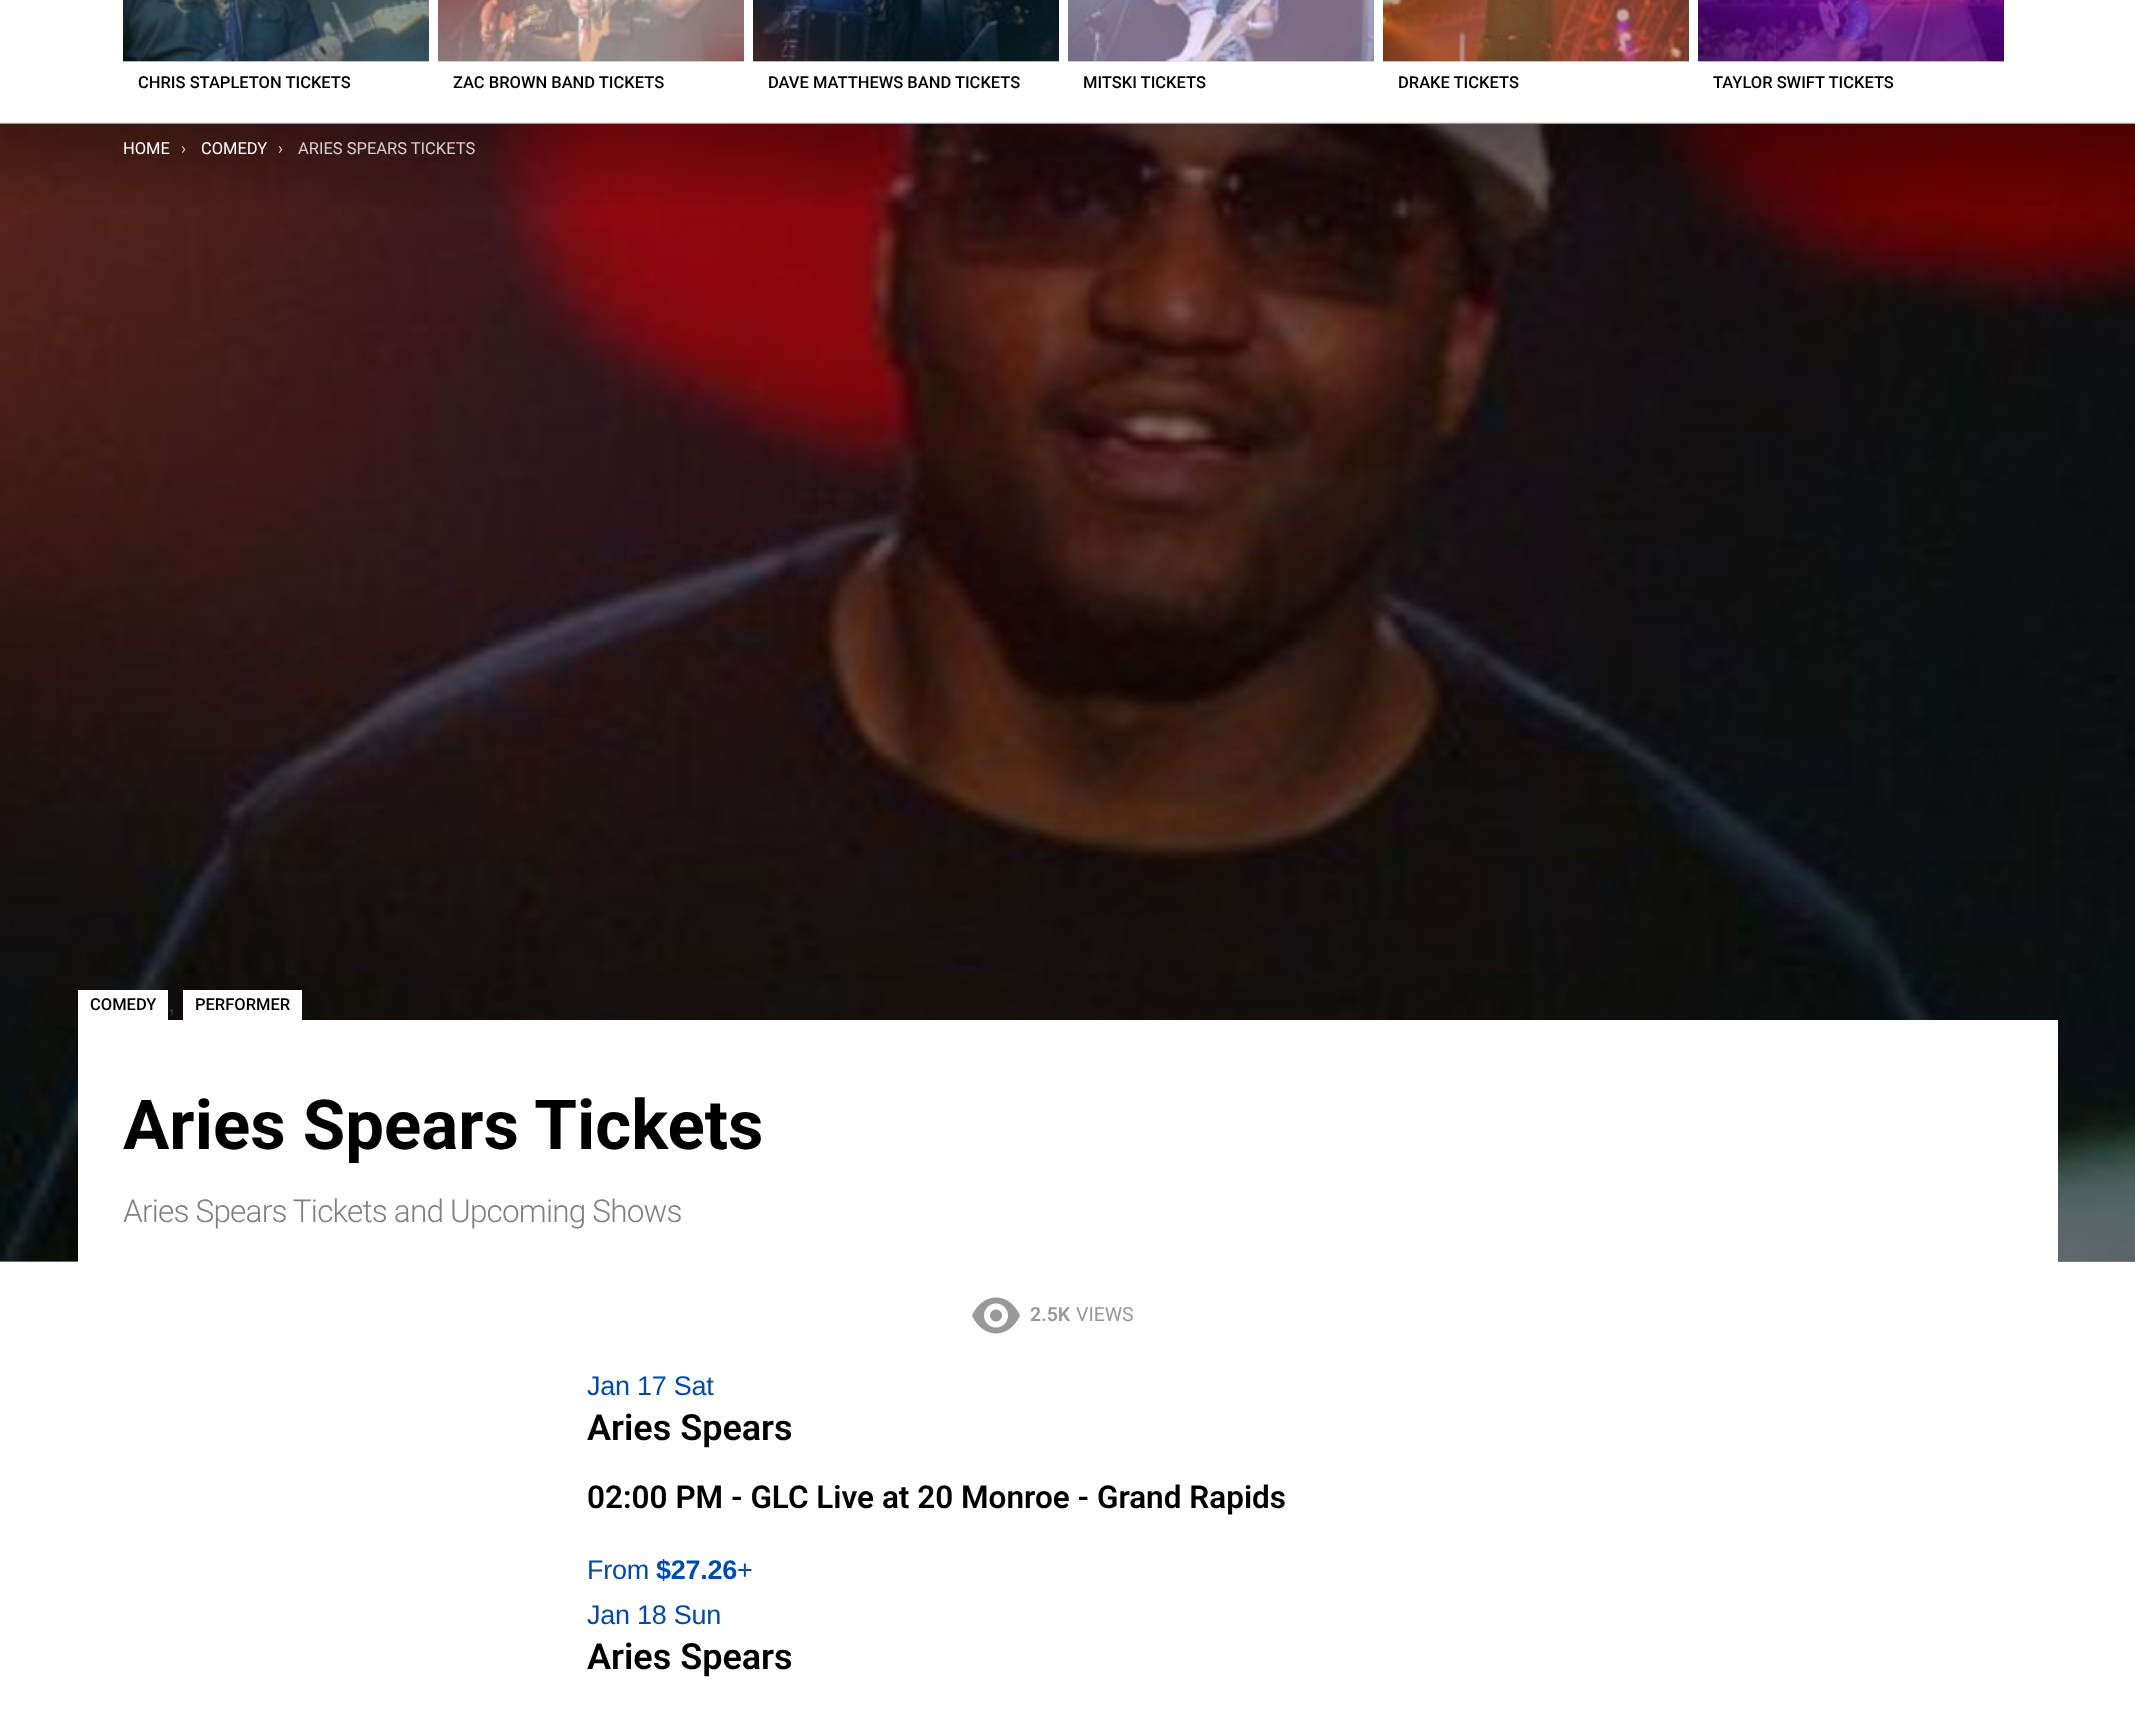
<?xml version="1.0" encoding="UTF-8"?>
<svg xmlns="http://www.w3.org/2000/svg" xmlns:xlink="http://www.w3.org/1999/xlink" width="2135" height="1725">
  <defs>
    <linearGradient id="g1" gradientUnits="userSpaceOnUse" x1="1068" y1="123" x2="1068" y2="723"><stop offset="0" stop-color="#000000" stop-opacity="0.33" /><stop offset="0.15" stop-color="#000000" stop-opacity="0" /></linearGradient>
  </defs>
  <rect width="100%" height="100%" fill="#ffffff" />
  <rect y="122" width="2135" height="2" fill="#e6e6e6" />
  <rect x="123" y="61" width="306" height="1" fill="#e6e6e6" />
  <image x="123" y="0" width="306" height="62" xlink:href="image1.png" />
  <rect x="438" y="61" width="306" height="1" fill="#e6e6e6" />
  <image x="438" y="0" width="306" height="62" xlink:href="image2.png" />
  <rect x="753" y="61" width="306" height="1" fill="#e6e6e6" />
  <image x="753" y="0" width="306" height="62" xlink:href="image3.png" />
  <rect x="1068" y="61" width="306" height="1" fill="#e6e6e6" />
  <image x="1068" y="0" width="306" height="62" xlink:href="image4.png" />
  <rect x="1383" y="61" width="306" height="1" fill="#e6e6e6" />
  <image x="1383" y="0" width="306" height="62" xlink:href="image5.png" />
  <rect x="1698" y="61" width="306" height="1" fill="#e6e6e6" />
  <image x="1698" y="0" width="306" height="62" xlink:href="image6.png" />
  <rect y="1261" width="2135" height="1" fill="#808080" />
  <image x="0" y="124" width="2135" height="1138" xlink:href="image7.png" />
  <rect y="123" width="2135" height="84" fill="url(#g1)" />
  <rect x="78" y="1020" width="1980" height="242" fill="#ffffff" />
  <rect x="78" y="990" width="90" height="30" fill="#ffffff" />
  <rect x="183" y="990" width="119" height="30" fill="#ffffff" />
  <image x="972" y="1297" width="48" height="37" xlink:href="image8.png" />
  <text x="138" y="88" style="font-family: Roboto; font-size: 16.5px; font-weight: 500; fill: #000000">CHRIS STAPLETON TICKETS</text>
  <text x="453" y="88" style="font-family: Roboto; font-size: 16.5px; font-weight: 500; fill: #000000">ZAC BROWN BAND TICKETS</text>
  <text x="768" y="88" style="font-family: Roboto; font-size: 16.5px; font-weight: 500; fill: #000000">DAVE MATTHEWS BAND TICKETS</text>
  <text x="1083" y="88" style="font-family: Roboto; font-size: 16.5px; font-weight: 500; fill: #000000">MITSKI TICKETS</text>
  <text x="1398" y="88" style="font-family: Roboto; font-size: 16.5px; font-weight: 500; fill: #000000">DRAKE TICKETS</text>
  <text x="1713" y="88" style="font-family: Roboto; font-size: 16.5px; font-weight: 500; fill: #000000">TAYLOR SWIFT TICKETS</text>
  <text x="123" y="154" style="font-family: Roboto; font-size: 16.5px; fill: #ffffff">HOME</text>
  <text x="181" y="154" style="font-family: Roboto; font-size: 16.5px; fill: #d9d1d0">›</text>
  <text x="201" y="154" style="font-family: Roboto; font-size: 16.5px; fill: #ffffff">COMEDY</text>
  <text x="278" y="154" style="font-family: Roboto; font-size: 16.5px; fill: #d9d1d0">›</text>
  <text x="298" y="154" style="font-family: Roboto; font-size: 16.5px; fill: #d9d1d0">ARIES SPEARS TICKETS</text>
  <text x="90" y="1010" style="font-family: Roboto; font-size: 16.5px; font-weight: 500; fill: #000000">COMEDY</text>
  <text x="195" y="1010" style="font-family: Roboto; font-size: 16.5px; font-weight: 500; fill: #000000">PERFORMER</text>
  <text x="168" y="1012" style="font-family: Liberation Sans; font-size: 27px; letter-spacing: -0.25px; fill: #333333">,</text>
  <text x="123" y="1149" style="font-family: Roboto; font-size: 69px; font-weight: bold; fill: #000000">Aries Spears Tickets</text>
  <text x="123" y="1222" style="font-family: Roboto; font-size: 31.5px; font-weight: 300; letter-spacing: -0.8px; fill: #808080">Aries Spears Tickets and Upcoming Shows</text>
  <text x="1030" y="1321" style="font-family: Roboto; font-size: 19.5px; font-weight: 600; fill: #999999">2.5K</text>
  <text x="1076" y="1321" style="font-family: Roboto; font-size: 19.5px; fill: #999999">VIEWS</text>
  <text x="587" y="1395" style="font-family: Liberation Sans; font-size: 27px; letter-spacing: -0.25px; fill: #004aad">Jan 17 Sat</text>
  <text x="587" y="1440" style="font-family: Roboto; font-size: 36px; font-weight: 600; fill: #000000">Aries Spears</text>
  <text x="587" y="1508" style="font-family: Roboto; font-size: 31.5px; font-weight: 600; fill: #000000">02:00 PM - GLC Live at 20 Monroe - Grand Rapids</text>
  <text x="587" y="1579" style="font-family: Liberation Sans; font-size: 27px; letter-spacing: -0.25px; fill: #004aad">From</text>
  <text x="656" y="1579" style="font-family: Liberation Sans; font-size: 27px; font-weight: bold; letter-spacing: -0.25px; fill: #004aad">$27.26</text>
  <text x="737" y="1579" style="font-family: Liberation Sans; font-size: 27px; letter-spacing: -0.25px; fill: #004aad">+</text>
  <text x="587" y="1624" style="font-family: Liberation Sans; font-size: 27px; letter-spacing: -0.25px; fill: #004aad">Jan 18 Sun</text>
  <text x="587" y="1669" style="font-family: Roboto; font-size: 36px; font-weight: 600; fill: #000000">Aries Spears</text>
</svg>
